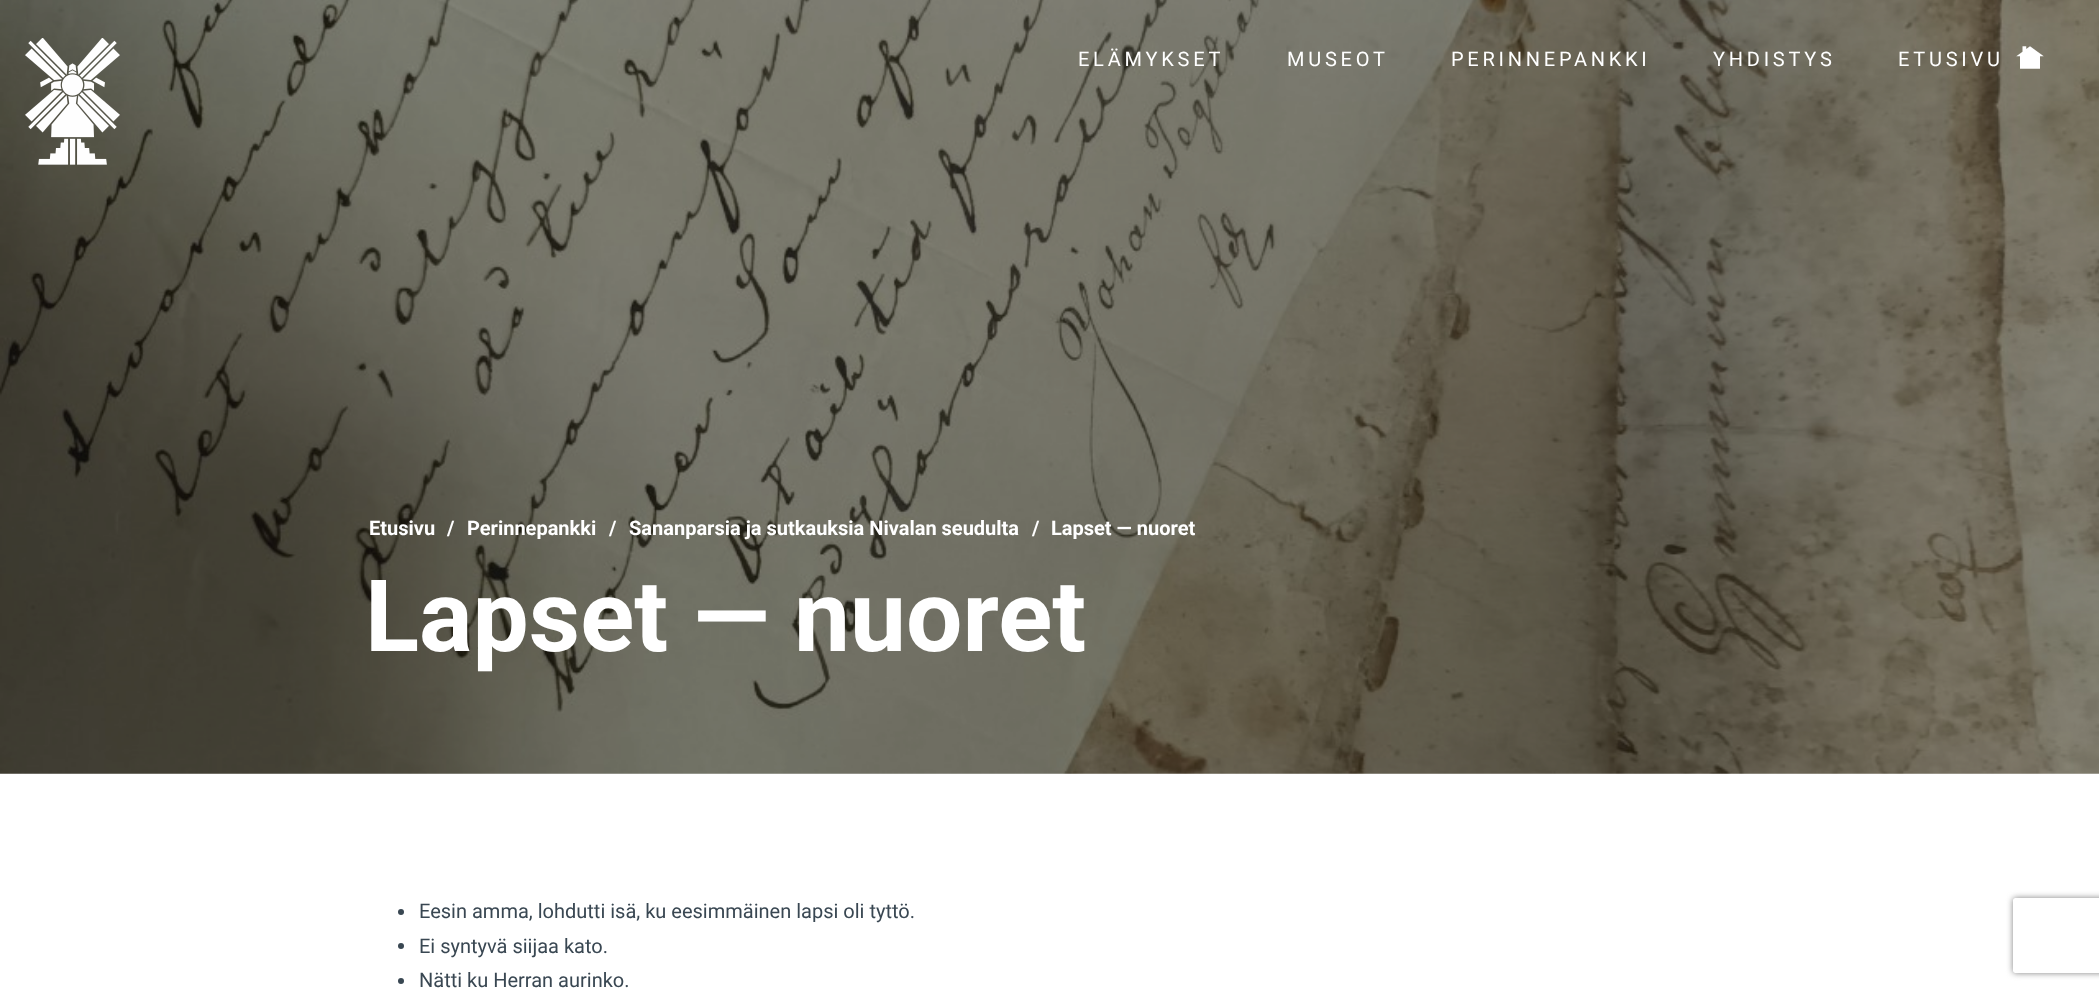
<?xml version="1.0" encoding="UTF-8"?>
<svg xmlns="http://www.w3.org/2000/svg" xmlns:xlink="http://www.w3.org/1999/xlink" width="2099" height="990">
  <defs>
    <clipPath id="clip1"><path d="M 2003 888 h 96 v 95 h -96 z m 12.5 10 h 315 c 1.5 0 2.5 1 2.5 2.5 v 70 c 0 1.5 -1 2.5 -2.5 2.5 h -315 c -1.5 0 -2.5 -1 -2.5 -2.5 v -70 c 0 -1.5 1 -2.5 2.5 -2.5 z" clip-rule="evenodd" /></clipPath>
  </defs>
  <rect width="100%" height="100%" fill="#ffffff" />
  <image x="0" y="0" width="2099" height="774" xlink:href="image1.png" />
  <image x="25" y="38" width="95" height="127" xlink:href="image2.png" />
  <image x="2016" y="46" width="28" height="23" xlink:href="image3.png" />
  <circle cx="401" cy="912" r="3" fill="#394752" />
  <circle cx="401" cy="946" r="3" fill="#394752" />
  <circle cx="401" cy="981" r="3" fill="#394752" />
  <g clip-path="url(#clip1)">
    <rect x="2013" y="898" width="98" height="75" rx="2.5" fill="#808080" filter="blur(3px)" />
  </g>
  <text x="1078" y="66" style="font-family: Roboto; font-size: 20px; letter-spacing: 3.75px; fill: #ffffff">ELÄMYKSET</text>
  <text x="1287" y="66" style="font-family: Roboto; font-size: 20px; letter-spacing: 3.75px; fill: #ffffff">MUSEOT</text>
  <text x="1451" y="66" style="font-family: Roboto; font-size: 20px; letter-spacing: 3.75px; fill: #ffffff">PERINNEPANKKI</text>
  <text x="1713" y="66" style="font-family: Roboto; font-size: 20px; letter-spacing: 3.75px; fill: #ffffff">YHDISTYS</text>
  <text x="1898" y="66" style="font-family: Roboto; font-size: 20px; letter-spacing: 3.75px; fill: #ffffff">ETUSIVU</text>
  <text x="369" y="535" style="font-family: Roboto; font-size: 20px; font-weight: bold; fill: #ffffff">Etusivu</text>
  <text x="447" y="535" style="font-family: Roboto; font-size: 20px; font-weight: bold; fill: #ffffff">/</text>
  <text x="467" y="535" style="font-family: Roboto; font-size: 20px; font-weight: bold; fill: #ffffff">Perinnepankki</text>
  <text x="609" y="535" style="font-family: Roboto; font-size: 20px; font-weight: bold; fill: #ffffff">/</text>
  <text x="629" y="535" style="font-family: Roboto; font-size: 20px; font-weight: bold; fill: #ffffff">Sananparsia ja sutkauksia Nivalan seudulta</text>
  <text x="1032" y="535" style="font-family: Roboto; font-size: 20px; font-weight: bold; fill: #ffffff">/</text>
  <text x="1051" y="535" style="font-family: Roboto; font-size: 20px; font-weight: bold; fill: #ffffff">Lapset — nuoret</text>
  <text x="365" y="651" style="font-family: Roboto; font-size: 100px; font-weight: bold; fill: #ffffff">Lapset — nuoret</text>
  <text x="419" y="918" style="font-family: Roboto; font-size: 20px; fill: #394752">Eesin amma, lohdutti isä, ku eesimmäinen lapsi oli tyttö.</text>
  <text x="419" y="953" style="font-family: Roboto; font-size: 20px; fill: #394752">Ei syntyvä siijaa kato.</text>
  <text x="419" y="987" style="font-family: Roboto; font-size: 20px; fill: #394752">Nätti ku Herran aurinko.</text>
</svg>
